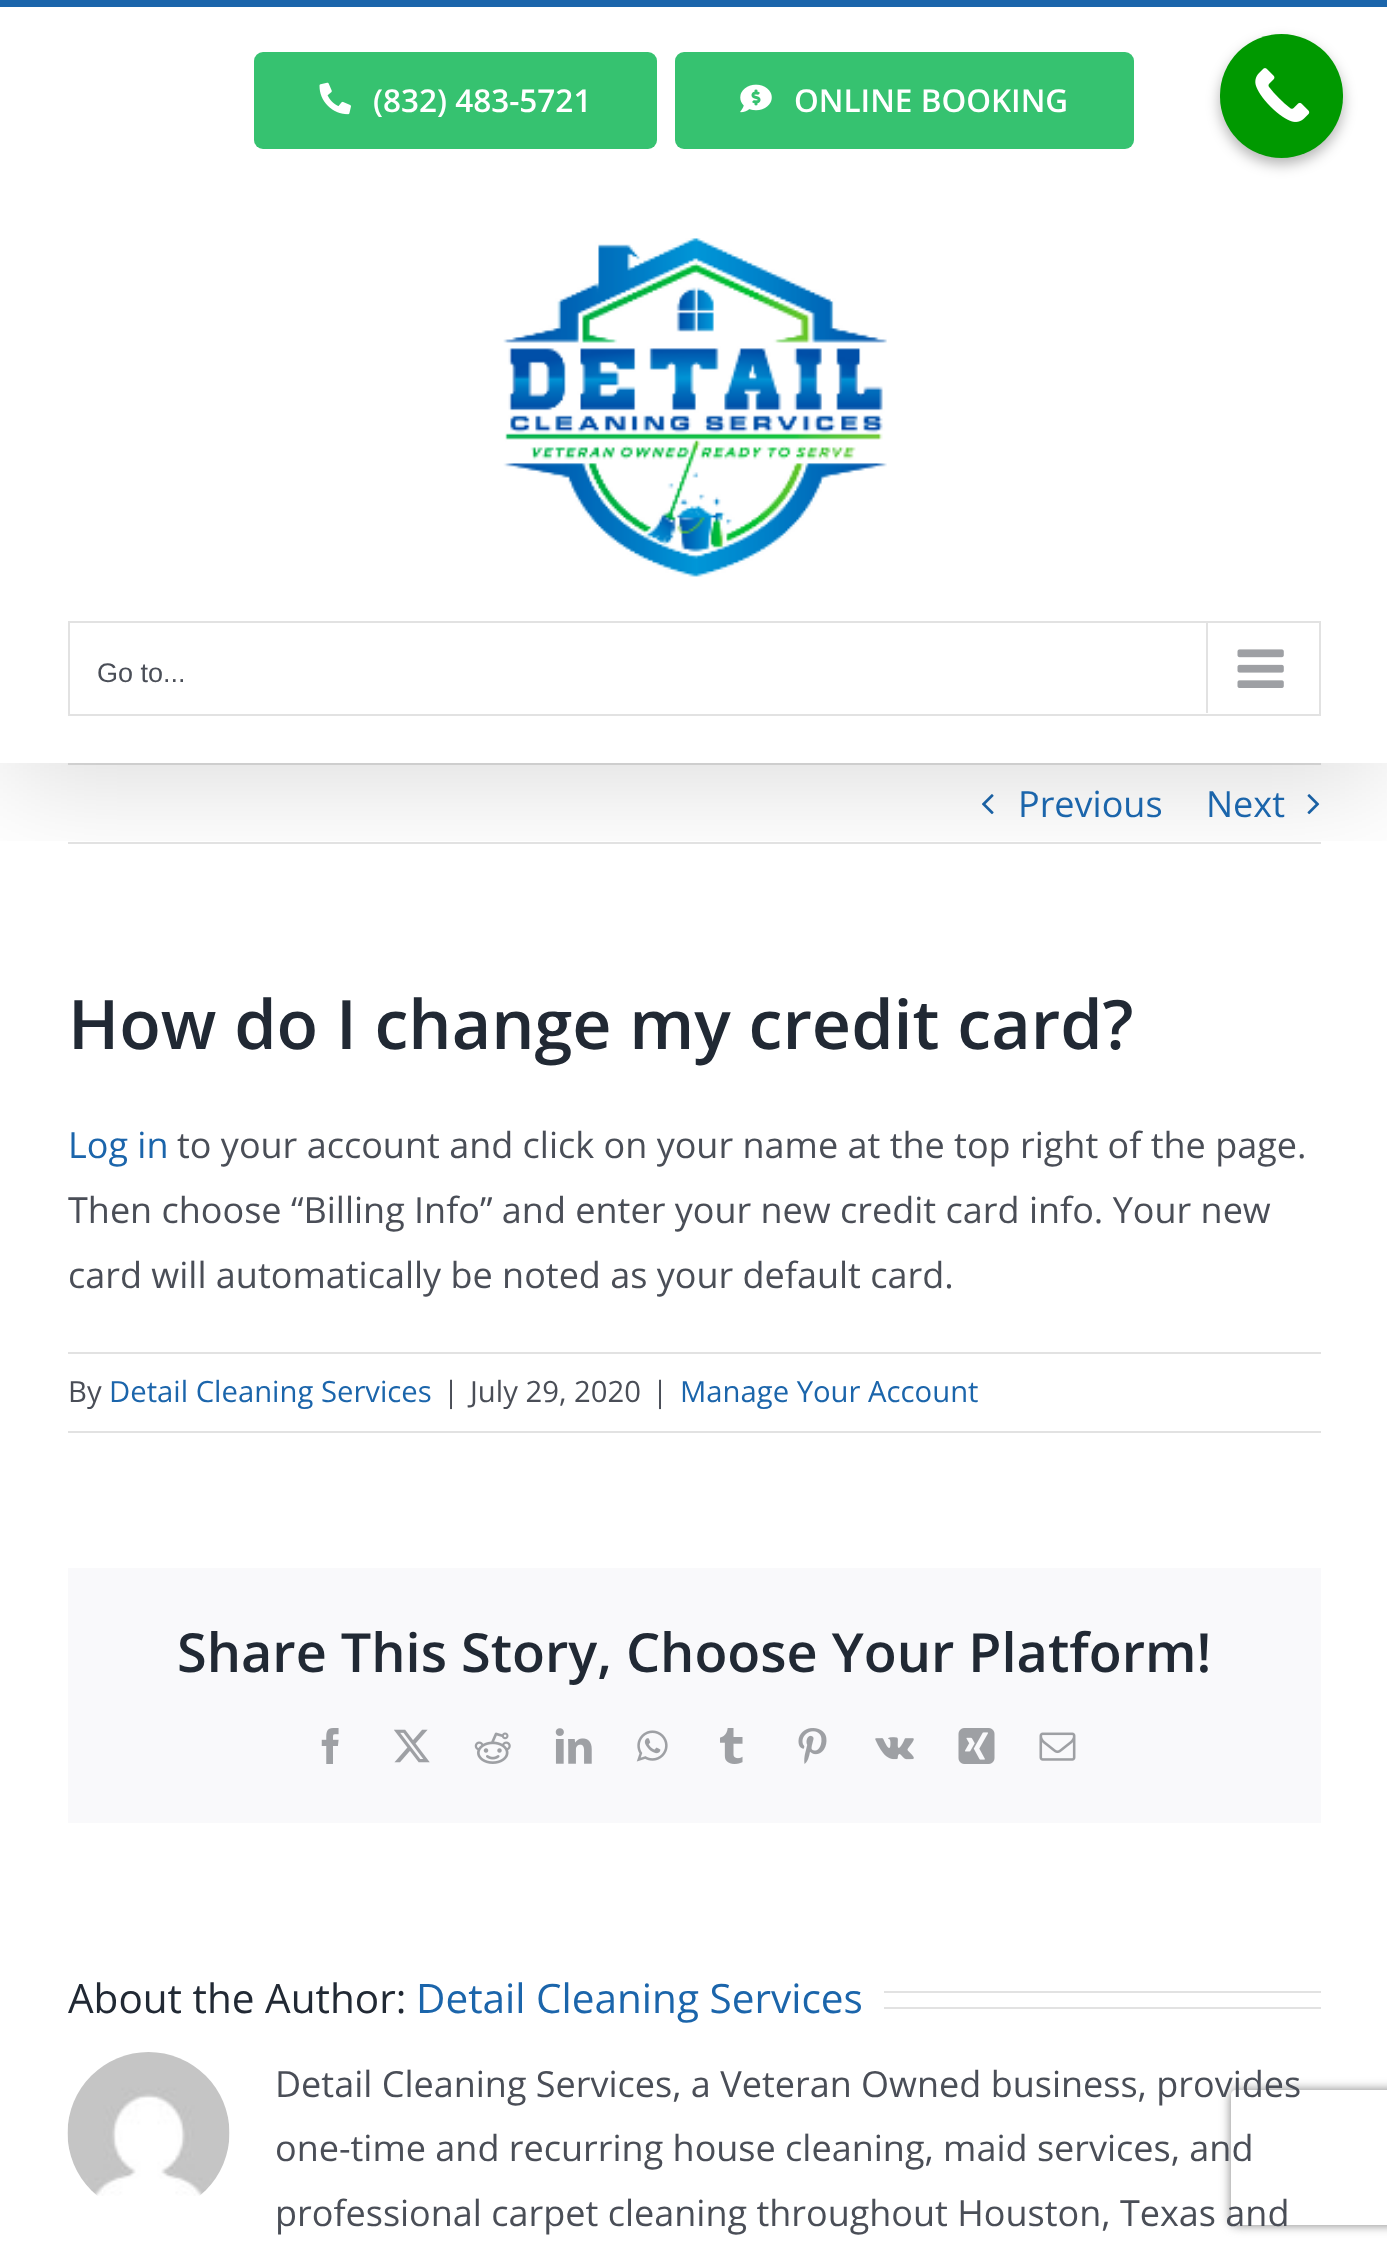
<?xml version="1.0" encoding="UTF-8"?>
<svg xmlns="http://www.w3.org/2000/svg" xmlns:xlink="http://www.w3.org/1999/xlink" width="1387" height="2256">
  <defs>
    <clipPath id="clip1"><rect x="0" y="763" width="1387" height="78" /></clipPath>
    <clipPath id="clip2"><path d="M 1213 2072 h 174 v 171 h -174 z m 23 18 h 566 c 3 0 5 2 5 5 v 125 c 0 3 -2 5 -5 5 h -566 c -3 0 -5 -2 -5 -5 v -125 c 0 -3 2 -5 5 -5 z" clip-rule="evenodd" /></clipPath>
  </defs>
  <rect width="100%" height="100%" fill="#ffffff" />
  <rect x="1220" y="41" width="123" height="123" rx="61.5" fill="#000000" fill-opacity="0.3" filter="blur(7px)" />
  <rect x="68" y="763" width="1253" height="2" fill="#e2e2e2" />
  <rect x="68" y="842" width="1253" height="2" fill="#e2e2e2" />
  <image x="982" y="794" width="12" height="21" xlink:href="image6.png" />
  <image x="1307" y="794" width="13" height="21" xlink:href="image7.png" />
  <g clip-path="url(#clip1)">
    <rect x="5" y="27" width="1379" height="754" fill="#000000" fill-opacity="0.14" filter="blur(56px)" />
  </g>
  <rect x="1220" y="34" width="123" height="124" rx="61.5" fill="#009900" />
  <image x="1255" y="68" width="55" height="54" xlink:href="image1.png" />
  <rect width="1387" height="7" fill="#1b65ab" />
  <rect x="254" y="52" width="403" height="97" rx="9" fill="#36c270" />
  <image x="319" y="82" width="32" height="33" xlink:href="image2.png" />
  <rect x="675" y="52" width="459" height="97" rx="9" fill="#36c270" />
  <image x="740" y="84" width="32" height="29" xlink:href="image3.png" />
  <rect y="762" width="1387" height="1" fill="#ffffff" />
  <image x="503" y="238" width="384" height="339" xlink:href="image4.png" />
  <rect x="69" y="622" width="1251" height="93" fill="none" stroke="#e2e2e2" stroke-width="2" />
  <rect x="1206" y="623" width="2" height="90" fill="#e2e2e2" />
  <image x="1237" y="649" width="47" height="39" xlink:href="image5.png" />
  <rect x="68" y="1352" width="1253" height="2" fill="#e2e2e2" />
  <rect x="68" y="1431" width="1253" height="2" fill="#e2e2e2" />
  <rect x="68" y="1568" width="1253" height="255" fill="#f9f9fb" />
  <image x="321" y="1728" width="18" height="36" xlink:href="image8.png" />
  <image x="394" y="1729" width="36" height="34" xlink:href="image9.png" />
  <image x="474" y="1732" width="37" height="32" xlink:href="image10.png" />
  <image x="555" y="1728" width="37" height="36" xlink:href="image11.png" />
  <image x="636" y="1730" width="32" height="32" xlink:href="image12.png" />
  <image x="720" y="1728" width="23" height="36" xlink:href="image13.png" />
  <image x="798" y="1728" width="29" height="36" xlink:href="image14.png" />
  <image x="875" y="1737" width="39" height="23" xlink:href="image15.png" />
  <image x="958" y="1728" width="37" height="36" xlink:href="image16.png" />
  <image x="1039" y="1732" width="37" height="29" xlink:href="image17.png" />
  <rect x="884" y="1991" width="437" height="2" fill="#e2e2e2" />
  <rect x="884" y="2007" width="437" height="2" fill="#e2e2e2" />
  <image x="67" y="2052" width="163" height="144" xlink:href="image18.png" />
  <g clip-path="url(#clip2)">
    <rect x="1231" y="2090" width="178" height="135" rx="5" fill="#808080" filter="blur(5.5px)" />
  </g>
  <text x="373" y="112" style="font-family: Open Sans; font-size: 31.5px; font-weight: 600; fill: #ffffff">(832) 483-5721</text>
  <text x="794" y="112" style="font-family: Open Sans; font-size: 31.5px; font-weight: 600; fill: #ffffff">ONLINE BOOKING</text>
  <text x="97" y="682" style="font-family: Liberation Sans; font-size: 27px; fill: #4a4e57">Go to...</text>
  <text x="1018" y="817" style="font-family: Open Sans; font-size: 36px; fill: #1b65ab">Previous</text>
  <text x="1206" y="817" style="font-family: Open Sans; font-size: 36px; fill: #1b65ab">Next</text>
  <text x="68" y="1049" style="font-family: Open Sans; font-size: 68.2px; font-weight: 600; fill: #212934">How do I change my credit card?</text>
  <text x="68" y="1158" style="font-family: Open Sans; font-size: 36px; fill: #1b65ab">Log in</text>
  <text x="177" y="1158" style="font-family: Open Sans; font-size: 36px; fill: #4a4e57">to your account and click on your name at the top right of the page.</text>
  <text x="68" y="1223" style="font-family: Open Sans; font-size: 36px; fill: #4a4e57">Then choose “Billing Info” and enter your new credit card info. Your new</text>
  <text x="68" y="1288" style="font-family: Open Sans; font-size: 36px; fill: #4a4e57">card will automatically be noted as your default card.</text>
  <text x="68" y="1402" style="font-family: Open Sans; font-size: 29.25px; fill: #4a4e57">By</text>
  <text x="109" y="1402" style="font-family: Open Sans; font-size: 29.25px; fill: #1b65ab">Detail Cleaning Services</text>
  <text x="443" y="1402" style="font-family: Open Sans; font-size: 29.25px; fill: #4a4e57">|</text>
  <text x="470" y="1402" style="font-family: Open Sans; font-size: 29.25px; fill: #4a4e57">July 29, 2020</text>
  <text x="652" y="1402" style="font-family: Open Sans; font-size: 29.25px; fill: #4a4e57">|</text>
  <text x="680" y="1402" style="font-family: Open Sans; font-size: 29.25px; fill: #1b65ab">Manage Your Account</text>
  <text x="177" y="1672" style="font-family: Open Sans; font-size: 54px; font-weight: 600; fill: #212934">Share This Story, Choose Your Platform!</text>
  <text x="68" y="2013" style="font-family: Open Sans; font-size: 40.5px; fill: #212934">About the Author:</text>
  <text x="416" y="2013" style="font-family: Open Sans; font-size: 40.5px; fill: #1b65ab">Detail Cleaning Services</text>
  <text x="275" y="2097" style="font-family: Open Sans; font-size: 36px; fill: #4a4e57">Detail Cleaning Services, a Veteran Owned business, provides</text>
  <text x="275" y="2161" style="font-family: Open Sans; font-size: 36px; fill: #4a4e57">one-time and recurring house cleaning, maid services, and</text>
  <text x="275" y="2226" style="font-family: Open Sans; font-size: 36px; fill: #4a4e57">professional carpet cleaning throughout Houston, Texas and</text>
</svg>
